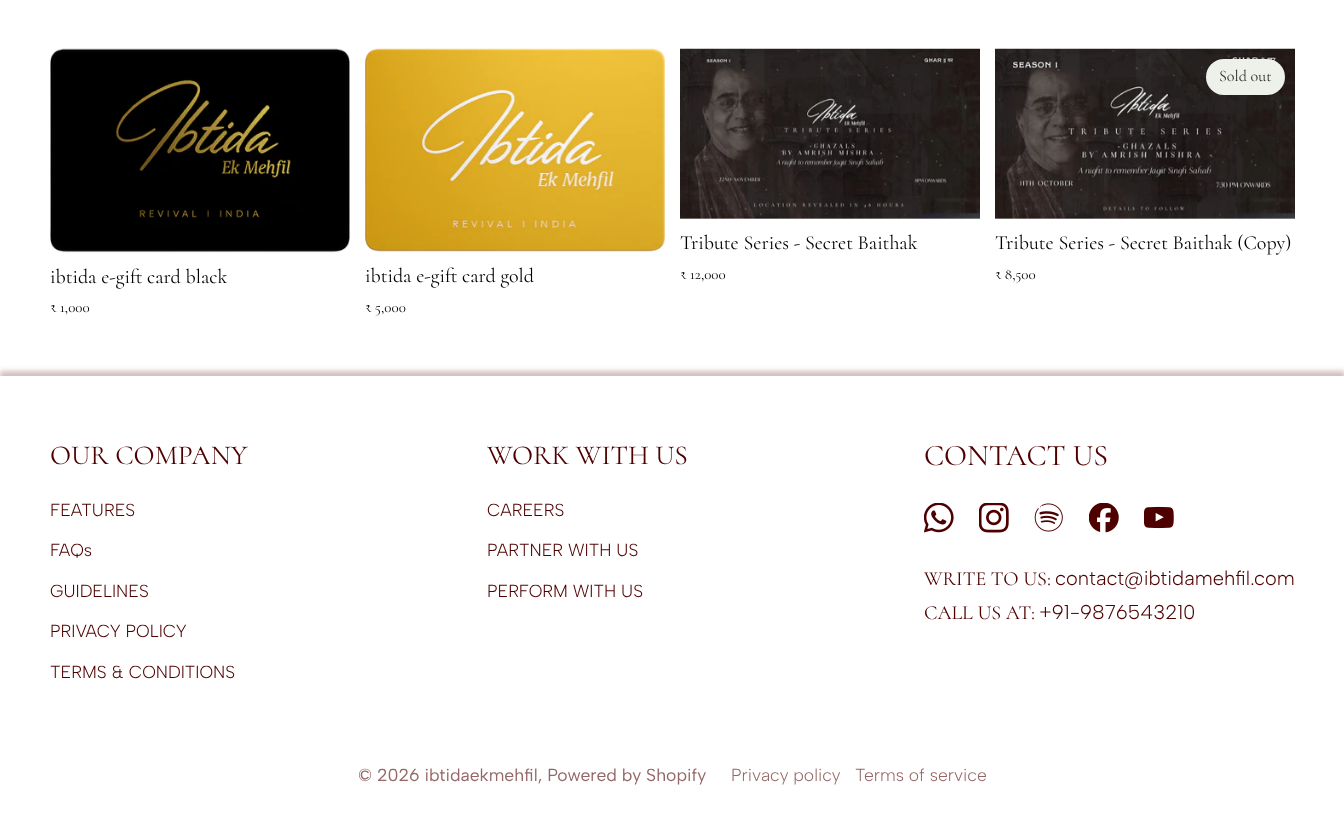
<?xml version="1.0" encoding="UTF-8"?>
<svg xmlns="http://www.w3.org/2000/svg" xmlns:xlink="http://www.w3.org/1999/xlink" width="1344" height="814">
  <defs>
    <clipPath id="clip1"><path d="M 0 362 h 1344 v 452 h -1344 z m 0 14 h 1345 v 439 h -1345 z" clip-rule="evenodd" /></clipPath>
  </defs>
  <rect width="100%" height="100%" fill="#ffffff" />
  <image x="680" y="48" width="300" height="171" xlink:href="image1.png" />
  <image x="995" y="48" width="300" height="171" xlink:href="image2.png" />
  <rect x="1206" y="59" width="79" height="36" rx="18" fill="#eef1ea" />
  <image x="50" y="48" width="300" height="205" xlink:href="image3.png" />
  <image x="365" y="48" width="300" height="204" xlink:href="image4.png" />
  <g clip-path="url(#clip1)">
    <rect y="371" width="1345" height="439" fill="#4e0000" fill-opacity="0.25" filter="blur(2.5px)" />
  </g>
  <image x="924" y="503" width="30" height="30" xlink:href="image5.png" />
  <image x="979" y="503" width="30" height="30" xlink:href="image6.png" />
  <image x="1034" y="503" width="29" height="29" xlink:href="image7.png" />
  <image x="1089" y="503" width="30" height="30" xlink:href="image8.png" />
  <image x="1144" y="506" width="30" height="23" xlink:href="image9.png" />
  <text x="680" y="249" style="font-family: Cormorant; font-size: 20px; fill: #000000">Tribute Series - Secret Baithak</text>
  <text x="680" y="279" style="font-family: Cormorant; font-size: 15px; fill: #000000">₹ 12,000</text>
  <text x="1219" y="81" style="font-family: Cormorant; font-size: 16px; fill: #2d2e2c">Sold out</text>
  <text x="995" y="249" style="font-family: Cormorant; font-size: 20px; fill: #000000">Tribute Series - Secret Baithak (Copy)</text>
  <text x="995" y="279" style="font-family: Cormorant; font-size: 15px; fill: #000000">₹ 8,500</text>
  <text x="50" y="283" style="font-family: Cormorant; font-size: 20px; fill: #000000">ibtida e-gift card black</text>
  <text x="50" y="312" style="font-family: Cormorant; font-size: 15px; fill: #000000">₹ 1,000</text>
  <text x="365" y="282" style="font-family: Cormorant; font-size: 20px; fill: #000000">ibtida e-gift card gold</text>
  <text x="365" y="312" style="font-family: Cormorant; font-size: 15px; fill: #000000">₹ 5,000</text>
  <text x="50" y="464" style="font-family: Cormorant; font-size: 27.5px; fill: #4e0000">OUR COMPANY</text>
  <text x="50" y="516" style="font-family: Albert Sans; font-size: 17.5px; font-weight: 300; fill: #4e0000">FEATURES</text>
  <text x="50" y="556" style="font-family: Albert Sans; font-size: 17.5px; font-weight: 300; fill: #4e0000">FAQs</text>
  <text x="50" y="597" style="font-family: Albert Sans; font-size: 17.5px; font-weight: 300; fill: #4e0000">GUIDELINES</text>
  <text x="50" y="637" style="font-family: Albert Sans; font-size: 17.5px; font-weight: 300; fill: #4e0000">PRIVACY POLICY</text>
  <text x="50" y="678" style="font-family: Albert Sans; font-size: 17.5px; font-weight: 300; fill: #4e0000">TERMS &amp; CONDITIONS</text>
  <text x="487" y="464" style="font-family: Cormorant; font-size: 27.5px; fill: #4e0000">WORK WITH US</text>
  <text x="487" y="516" style="font-family: Albert Sans; font-size: 17.5px; font-weight: 300; fill: #4e0000">CAREERS</text>
  <text x="487" y="556" style="font-family: Albert Sans; font-size: 17.5px; font-weight: 300; fill: #4e0000">PARTNER WITH US</text>
  <text x="487" y="597" style="font-family: Albert Sans; font-size: 17.5px; font-weight: 300; fill: #4e0000">PERFORM WITH US</text>
  <text x="924" y="465" style="font-family: Cormorant; font-size: 30px; fill: #4e0000">CONTACT US</text>
  <text x="924" y="585" style="font-family: Cormorant; font-size: 20px; fill: #4e0000">WRITE TO US:</text>
  <text x="1055" y="585" style="font-family: Albert Sans; font-size: 20px; font-weight: 300; fill: #4e0000">contact@ibtidamehfil.com</text>
  <text x="924" y="619" style="font-family: Cormorant; font-size: 20px; fill: #4e0000">CALL US AT:</text>
  <text x="1039" y="619" style="font-family: Albert Sans; font-size: 20px; font-weight: 300; fill: #4e0000">+91-9876543210</text>
  <text x="358" y="781" style="font-family: Albert Sans; font-size: 17.5px; fill: #956666">© 2026 ibtidaekmehfil, Powered by Shopify</text>
  <text x="731" y="781" style="font-family: Albert Sans; font-size: 17.5px; font-weight: 300; fill: #956666">Privacy policy</text>
  <text x="855" y="781" style="font-family: Albert Sans; font-size: 17.5px; font-weight: 300; fill: #956666">Terms of service</text>
</svg>
